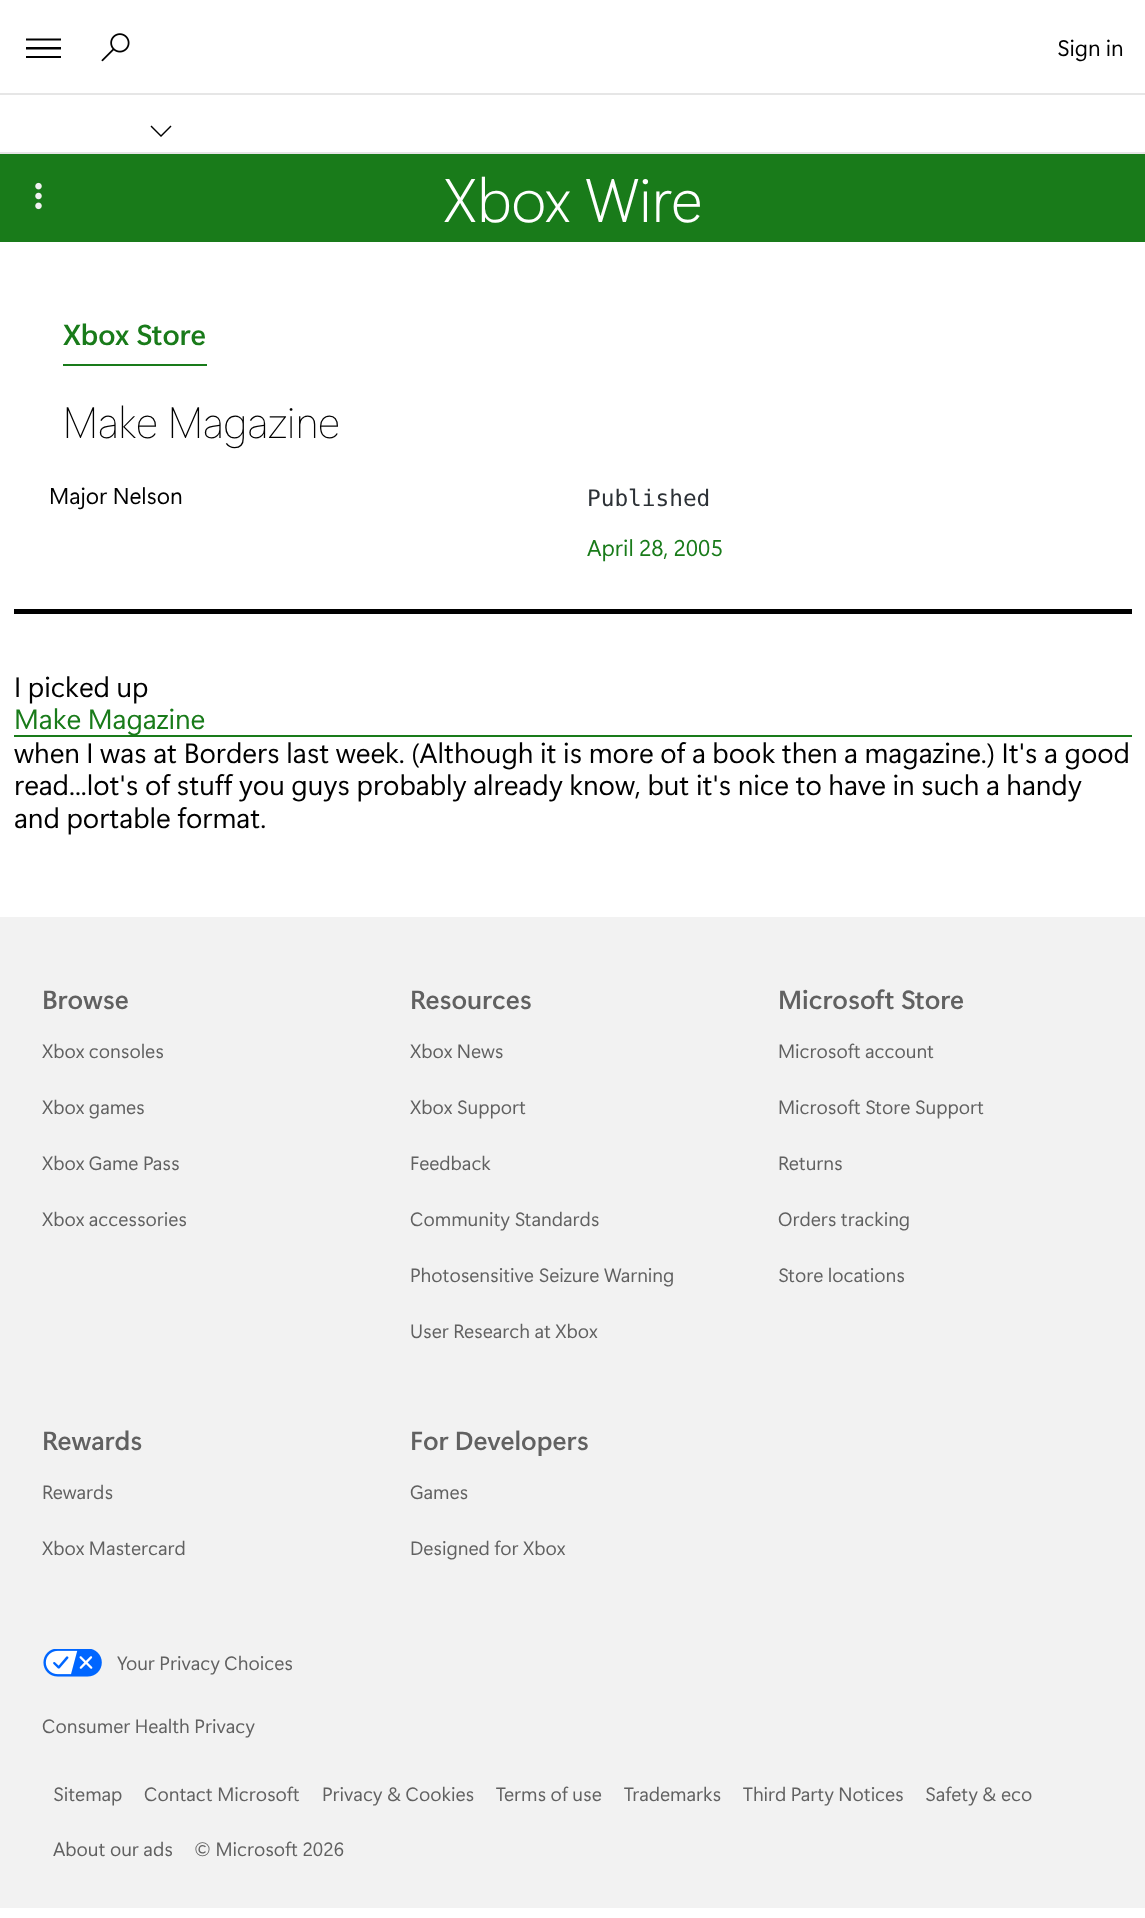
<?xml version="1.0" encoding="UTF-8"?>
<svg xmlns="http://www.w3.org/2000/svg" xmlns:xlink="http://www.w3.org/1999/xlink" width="1145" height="1918">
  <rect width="100%" height="100%" fill="#ffffff" />
  <rect y="93" width="1145" height="2" fill="#e6e6e6" />
  <path d="M 61 40.5 h -35 v -2 h 35 z m 0 17.5 h -35 v -2 h 35 z m 0 -8.5 h -35 v -2.5 h 35 z" fill="#000000" />
  <image x="101" y="33" width="29" height="29" xlink:href="image1.png" />
  <rect y="152" width="1145" height="2" fill="#e6e6e6" />
  <path d="M 170.5 125.5 l 1 1 l -10.5 10.5 l -10.5 -10.5 l 1 -1 l 9.5 9.5 z" fill="#000000" />
  <rect y="154" width="1145" height="88" fill="#197b1a" />
  <image x="35" y="182" width="7" height="28" xlink:href="image2.png" />
  <rect x="63" y="364" width="144" height="2" fill="#197b1a" />
  <rect x="14" y="609" width="1118" height="5" fill="#000000" />
  <rect x="14" y="735" width="1118" height="2" fill="#197b1a" />
  <rect y="917" width="1145" height="991" fill="#f2f2f2" />
  <image x="43" y="1649" width="59" height="28" xlink:href="image3.png" />
  <text x="1057" y="56" style="font-family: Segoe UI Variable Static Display; font-size: 22.5px; fill: #000000">Sign in</text>
  <text x="443" y="222" style="font-family: Segoe UI Variable Static Display; font-size: 61.25px; font-weight: 300; fill: #ffffff">Xbox Wire</text>
  <text x="63" y="345" style="font-family: Segoe UI Variable Static Display; font-size: 29px; font-weight: 600; fill: #197b1a">Xbox Store</text>
  <text x="63" y="438" style="font-family: 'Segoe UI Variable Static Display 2'; font-size: 43.75px; font-weight: 300; fill: #000000">Make Magazine</text>
  <text x="49" y="504" style="font-family: Segoe UI Variable Static Display; font-size: 22.75px; fill: #000000">Major Nelson</text>
  <text x="587" y="506" style="font-family: DejaVu Sans Mono; font-size: 22.75px; fill: #2c3136">Published</text>
  <text x="587" y="556" style="font-family: Segoe UI Variable Static Display; font-size: 22.75px; fill: #197b1a">April 28, 2005</text>
  <text x="14" y="697" style="font-family: Segoe UI Variable Static Display; font-size: 28px; fill: #000000">I picked up</text>
  <text x="14" y="729" style="font-family: Segoe UI Variable Static Display; font-size: 28px; fill: #197b1a">Make Magazine</text>
  <text x="14" y="763" style="font-family: Segoe UI Variable Static Display; font-size: 28px; fill: #000000">when I was at Borders last week. (Although it is more of a book then a magazine.) It's a good</text>
  <text x="14" y="795" style="font-family: Segoe UI Variable Static Display; font-size: 28px; fill: #000000">read...lot's of stuff you guys probably already know, but it's nice to have in such a handy</text>
  <text x="14" y="828" style="font-family: Segoe UI Variable Static Display; font-size: 28px; fill: #000000">and portable format.</text>
  <text x="42" y="1009" style="font-family: Segoe UI Variable Static Display; font-size: 26.25px; font-weight: 600; fill: #616161">Browse</text>
  <text x="42" y="1058" style="font-family: Segoe UI Variable Static Display; font-size: 19.25px; fill: #616161">Xbox consoles</text>
  <text x="42" y="1114" style="font-family: Segoe UI Variable Static Display; font-size: 19.25px; fill: #616161">Xbox games</text>
  <text x="42" y="1170" style="font-family: Segoe UI Variable Static Display; font-size: 19.25px; fill: #616161">Xbox Game Pass</text>
  <text x="42" y="1226" style="font-family: Segoe UI Variable Static Display; font-size: 19.25px; fill: #616161">Xbox accessories</text>
  <text x="410" y="1009" style="font-family: Segoe UI Variable Static Display; font-size: 26.25px; font-weight: 600; fill: #616161">Resources</text>
  <text x="410" y="1058" style="font-family: Segoe UI Variable Static Display; font-size: 19.25px; fill: #616161">Xbox News</text>
  <text x="410" y="1114" style="font-family: Segoe UI Variable Static Display; font-size: 19.25px; fill: #616161">Xbox Support</text>
  <text x="410" y="1170" style="font-family: Segoe UI Variable Static Display; font-size: 19.25px; fill: #616161">Feedback</text>
  <text x="410" y="1226" style="font-family: Segoe UI Variable Static Display; font-size: 19.25px; fill: #616161">Community Standards</text>
  <text x="410" y="1282" style="font-family: Segoe UI Variable Static Display; font-size: 19.25px; fill: #616161">Photosensitive Seizure Warning</text>
  <text x="410" y="1338" style="font-family: Segoe UI Variable Static Display; font-size: 19.25px; fill: #616161">User Research at Xbox</text>
  <text x="778" y="1009" style="font-family: Segoe UI Variable Static Display; font-size: 26.25px; font-weight: 600; fill: #616161">Microsoft Store</text>
  <text x="778" y="1058" style="font-family: Segoe UI Variable Static Display; font-size: 19.25px; fill: #616161">Microsoft account</text>
  <text x="778" y="1114" style="font-family: Segoe UI Variable Static Display; font-size: 19.25px; fill: #616161">Microsoft Store Support</text>
  <text x="778" y="1170" style="font-family: Segoe UI Variable Static Display; font-size: 19.25px; fill: #616161">Returns</text>
  <text x="778" y="1226" style="font-family: Segoe UI Variable Static Display; font-size: 19.25px; fill: #616161">Orders tracking</text>
  <text x="778" y="1282" style="font-family: Segoe UI Variable Static Display; font-size: 19.25px; fill: #616161">Store locations</text>
  <text x="42" y="1450" style="font-family: Segoe UI Variable Static Display; font-size: 26.25px; font-weight: 600; fill: #616161">Rewards</text>
  <text x="42" y="1499" style="font-family: Segoe UI Variable Static Display; font-size: 19.25px; fill: #616161">Rewards</text>
  <text x="42" y="1555" style="font-family: Segoe UI Variable Static Display; font-size: 19.25px; fill: #616161">Xbox Mastercard</text>
  <text x="410" y="1450" style="font-family: Segoe UI Variable Static Display; font-size: 26.25px; font-weight: 600; fill: #616161">For Developers</text>
  <text x="410" y="1499" style="font-family: Segoe UI Variable Static Display; font-size: 19.25px; fill: #616161">Games</text>
  <text x="410" y="1555" style="font-family: Segoe UI Variable Static Display; font-size: 19.25px; fill: #616161">Designed for Xbox</text>
  <text x="117" y="1670" style="font-family: Segoe UI Variable Static Display; font-size: 19.25px; fill: #616161">Your Privacy Choices</text>
  <text x="42" y="1733" style="font-family: Segoe UI Variable Static Display; font-size: 19.25px; fill: #616161">Consumer Health Privacy</text>
  <text x="53" y="1801" style="font-family: Segoe UI Variable Static Display; font-size: 19.25px; fill: #616161">Sitemap</text>
  <text x="144" y="1801" style="font-family: Segoe UI Variable Static Display; font-size: 19.25px; fill: #616161">Contact Microsoft</text>
  <text x="322" y="1801" style="font-family: Segoe UI Variable Static Display; font-size: 19.25px; fill: #616161">Privacy &amp; Cookies</text>
  <text x="496" y="1801" style="font-family: Segoe UI Variable Static Display; font-size: 19.25px; fill: #616161">Terms of use</text>
  <text x="624" y="1801" style="font-family: Segoe UI Variable Static Display; font-size: 19.25px; fill: #616161">Trademarks</text>
  <text x="743" y="1801" style="font-family: Segoe UI Variable Static Display; font-size: 19.25px; fill: #616161">Third Party Notices</text>
  <text x="925" y="1801" style="font-family: Segoe UI Variable Static Display; font-size: 19.25px; fill: #616161">Safety &amp; eco</text>
  <text x="53" y="1856" style="font-family: Segoe UI Variable Static Display; font-size: 19.25px; fill: #616161">About our ads</text>
  <text x="194" y="1856" style="font-family: Segoe UI Variable Static Display; font-size: 19.25px; fill: #616161">© Microsoft 2026</text>
</svg>
